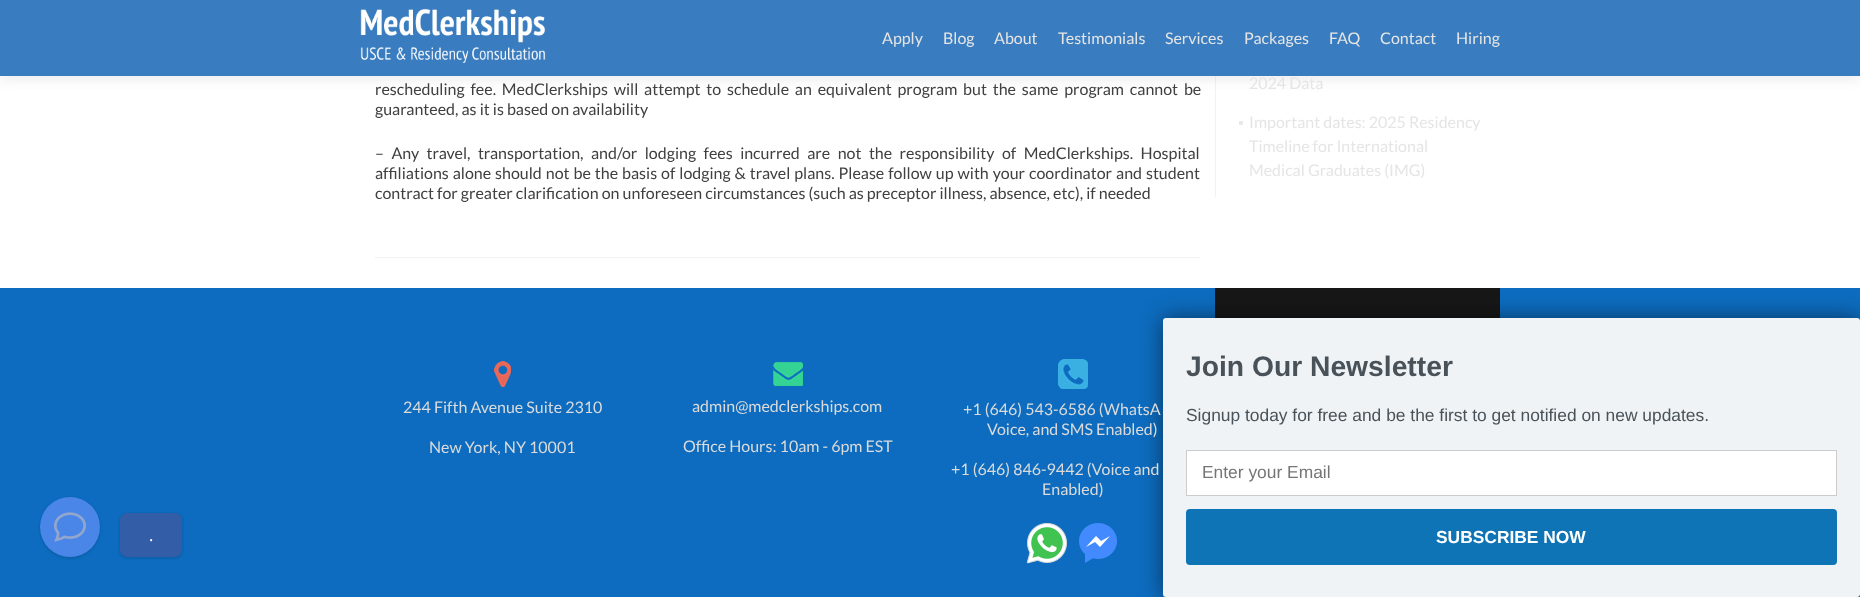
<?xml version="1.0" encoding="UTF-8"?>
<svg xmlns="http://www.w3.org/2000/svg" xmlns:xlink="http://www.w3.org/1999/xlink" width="1860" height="597">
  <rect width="100%" height="100%" fill="#ffffff" />
  <rect x="1215" y="76" width="1" height="121" fill="#f2f2f2" />
  <rect y="5" width="1860" height="76" fill="#323232" fill-opacity="0.08" filter="blur(5.5px)" />
  <rect width="1860" height="76" fill="#397cbf" />
  <image x="360" y="8" width="186" height="55" xlink:href="image1.png" />
  <rect x="375" y="257" width="825" height="1" fill="#f2f2f2" />
  <rect x="1239" y="121" width="4" height="4" fill="#e9e9e9" />
  <rect y="288" width="1860" height="309" fill="#0d6cbf" />
  <rect x="1215" y="288" width="285" height="30" fill="#171717" />
  <image x="494" y="361" width="17" height="26" xlink:href="image2.png" />
  <image x="773" y="362" width="30" height="24" xlink:href="image3.png" />
  <image x="1058" y="359" width="30" height="30" xlink:href="image4.png" />
  <image x="1026" y="523" width="41" height="41" xlink:href="image5.png" />
  <image x="1079" y="523" width="38" height="40" xlink:href="image6.png" />
  <rect x="40" y="498" width="60" height="60" rx="30" fill="#000000" fill-opacity="0.06" filter="blur(1px)" />
  <rect x="40" y="498" width="60" height="60" rx="30" fill="#000000" fill-opacity="0.1" filter="blur(1.5px)" />
  <circle cx="70" cy="527" r="30" fill="#4a86e8" />
  <image x="54" y="512" width="32" height="30" xlink:href="image7.png" />
  <rect x="120" y="514" width="62" height="44" rx="7" fill="#000000" fill-opacity="0.06" filter="blur(1px)" />
  <rect x="120" y="514" width="62" height="44" rx="7" fill="#000000" fill-opacity="0.1" filter="blur(1.5px)" />
  <rect x="120.5" y="513.5" width="61" height="43" rx="6.5" fill="#345da7" stroke="#345da7" />
  <rect x="1163" y="318" width="697" height="279" rx="3" fill="#000000" fill-opacity="0.5" filter="blur(11px)" />
  <rect x="1163" y="318" width="697" height="279" rx="3" fill="#f0f3f5" />
  <rect x="1186.5" y="450.5" width="650" height="45" fill="#ffffff" stroke="#cccccc" />
  <rect x="1186" y="509" width="651" height="56" rx="4" fill="#0f74b5" />
  <text x="882" y="44" style="font-family: Lato; font-size: 16px; fill: #e5e5e5">Apply</text>
  <text x="943" y="44" style="font-family: Lato; font-size: 16px; fill: #e5e5e5">Blog</text>
  <text x="994" y="44" style="font-family: Lato; font-size: 16px; fill: #e5e5e5">About</text>
  <text x="1058" y="44" style="font-family: Lato; font-size: 16px; fill: #e5e5e5">Testimonials</text>
  <text x="1165" y="44" style="font-family: Lato; font-size: 16px; fill: #e5e5e5">Services</text>
  <text x="1244" y="44" style="font-family: Lato; font-size: 16px; fill: #e5e5e5">Packages</text>
  <text x="1329" y="44" style="font-family: Lato; font-size: 16px; fill: #e5e5e5">FAQ</text>
  <text x="1380" y="44" style="font-family: Lato; font-size: 16px; fill: #e5e5e5">Contact</text>
  <text x="1456" y="44" style="font-family: Lato; font-size: 16px; fill: #e5e5e5">Hiring</text>
  <text x="375" y="95" word-spacing="2.75" style="font-family: Lato; font-size: 16px; fill: #404040">rescheduling fee. MedClerkships will attempt to schedule an equivalent program but the same program cannot be</text>
  <text x="375" y="115" style="font-family: Lato; font-size: 16px; fill: #404040">guaranteed, as it is based on availability</text>
  <text x="375" y="159" word-spacing="4.4" style="font-family: Lato; font-size: 16px; fill: #404040">– Any travel, transportation, and/or lodging fees incurred are not the responsibility of MedClerkships. Hospital</text>
  <text x="375" y="179" word-spacing="0.9" style="font-family: Lato; font-size: 16px; fill: #404040">affiliations alone should not be the basis of lodging &amp; travel plans. Please follow up with your coordinator and student</text>
  <text x="375" y="199" style="font-family: Lato; font-size: 16px; fill: #404040">contract for greater clarification on unforeseen circumstances (such as preceptor illness, absence, etc), if needed</text>
  <text x="1249" y="89" style="font-family: Lato; font-size: 16px; fill: #e5e5e5">2024 Data</text>
  <text x="1249" y="128" style="font-family: Lato; font-size: 16px; fill: #e5e5e5">Important dates: 2025 Residency</text>
  <text x="1249" y="152" style="font-family: Lato; font-size: 16px; fill: #e5e5e5">Timeline for International</text>
  <text x="1249" y="176" style="font-family: Lato; font-size: 16px; fill: #e5e5e5">Medical Graduates (IMG)</text>
  <text x="403" y="413" style="font-family: Lato; font-size: 16px; fill: #dbdbdb">244 Fifth Avenue Suite 2310</text>
  <text x="429" y="453" style="font-family: Lato; font-size: 16px; fill: #dbdbdb">New York, NY 10001</text>
  <text x="692" y="412" style="font-family: Lato; font-size: 16px; fill: #dbdbdb">admin@medclerkships.com</text>
  <text x="683" y="452" style="font-family: Lato; font-size: 16px; fill: #dbdbdb">Office Hours: 10am - 6pm EST</text>
  <text x="963" y="415" style="font-family: Lato; font-size: 16px; fill: #dbdbdb">+1 (646) 543-6586 (WhatsA</text>
  <text x="987" y="435" style="font-family: Lato; font-size: 16px; fill: #dbdbdb">Voice, and SMS Enabled)</text>
  <text x="951" y="475" style="font-family: Lato; font-size: 16px; fill: #dbdbdb">+1 (646) 846-9442 (Voice and</text>
  <text x="1042" y="495" style="font-family: Lato; font-size: 16px; fill: #dbdbdb">Enabled)</text>
  <text x="149" y="541" style="font-family: Noto Sans; font-size: 16px; fill: #ffffff">.</text>
  <text x="1186" y="376" style="font-family: Liberation Sans; font-size: 28.25px; font-weight: bold; fill: #495259">Join Our Newsletter</text>
  <text x="1186" y="421" style="font-family: Liberation Sans; font-size: 17.4px; fill: #495259">Signup today for free and be the first to get notified on new updates.</text>
  <text x="1202" y="478" style="font-family: Liberation Sans; font-size: 17.4px; fill: #757575">Enter your Email</text>
  <text x="1436" y="543" style="font-family: Liberation Sans; font-size: 17.4px; font-weight: bold; fill: #ffffff">SUBSCRIBE NOW</text>
</svg>
